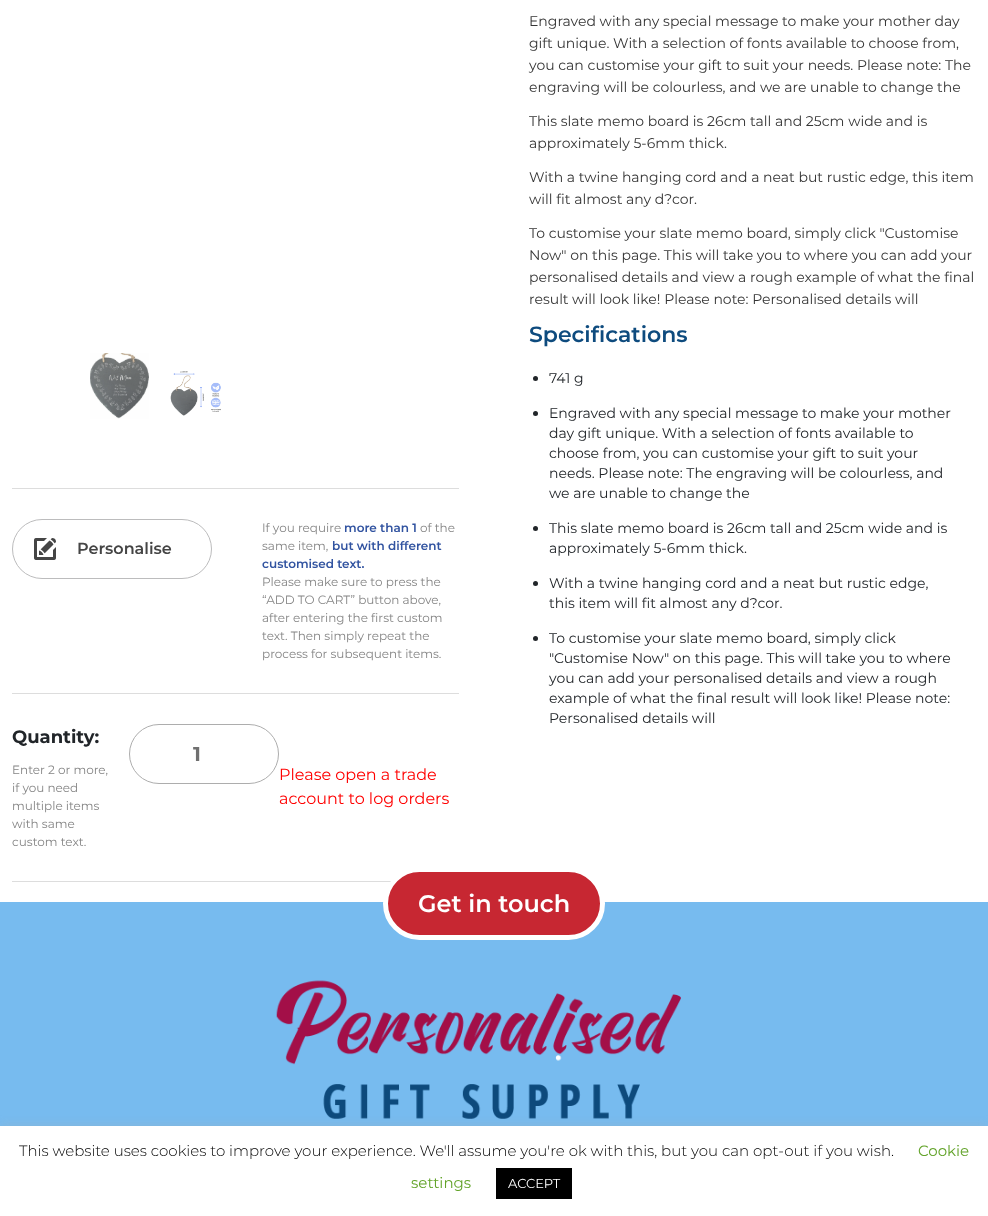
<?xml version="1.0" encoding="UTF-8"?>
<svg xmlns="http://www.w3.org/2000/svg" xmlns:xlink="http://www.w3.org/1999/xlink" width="988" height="1216">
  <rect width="100%" height="100%" fill="#ffffff" />
  <image x="90" y="353" width="59" height="66" xlink:href="image1.png" />
  <image x="170" y="371" width="51" height="45" xlink:href="image2.png" />
  <rect x="12" y="488" width="447" height="1" fill="#dddddd" />
  <rect x="12.5" y="519.5" width="199" height="59" rx="29.5" fill="none" stroke="#bcbcbd" />
  <image x="34" y="538" width="22" height="22" xlink:href="image3.png" />
  <rect x="12" y="693" width="447" height="1" fill="#dddddd" />
  <rect x="12" y="881" width="379" height="1" fill="#dddddd" />
  <rect x="129.5" y="724.5" width="149" height="59" rx="29.5" fill="none" stroke="#adadad" />
  <circle cx="535.5" cy="378.5" r="2.5" fill="#212529" />
  <circle cx="535.5" cy="413.5" r="2.5" fill="#212529" />
  <circle cx="535.5" cy="528.5" r="2.5" fill="#212529" />
  <circle cx="535.5" cy="583.5" r="2.5" fill="#212529" />
  <circle cx="535.5" cy="638.5" r="2.5" fill="#212529" />
  <rect y="902" width="988" height="224" fill="#77bbef" />
  <rect x="385.5" y="869.5" width="217" height="68" rx="34" fill="#c72732" stroke="#ffffff" stroke-width="5" />
  <image x="276" y="980" width="405" height="139" xlink:href="image4.png" />
  <rect y="1125" width="988" height="90" fill="#acabab" fill-opacity="0.3" filter="blur(5px)" />
  <rect y="1126" width="988" height="90" fill="#ffffff" />
  <rect x="496" y="1168" width="76" height="31" fill="#000000" />
  <text x="77" y="554" style="font-family: Montserrat; font-size: 16px; font-weight: 600; fill: #454545">Personalise</text>
  <text x="262" y="532" style="font-family: Montserrat; font-size: 12px; fill: #858585">If you require</text>
  <text x="344" y="532" style="font-family: Montserrat; font-size: 12px; font-weight: 600; fill: #3153a0">more than 1</text>
  <text x="420" y="532" style="font-family: Montserrat; font-size: 12px; fill: #858585">of the</text>
  <text x="262" y="550" style="font-family: Montserrat; font-size: 12px; fill: #858585">same item,</text>
  <text x="332" y="550" style="font-family: Montserrat; font-size: 12px; font-weight: 600; fill: #3153a0">but with different</text>
  <text x="262" y="568" style="font-family: Montserrat; font-size: 12px; font-weight: 600; fill: #3153a0">customised text.</text>
  <text x="262" y="586" style="font-family: Montserrat; font-size: 12px; fill: #858585">Please make sure to press the</text>
  <text x="262" y="604" style="font-family: Montserrat; font-size: 12px; fill: #858585">“ADD TO CART” button above,</text>
  <text x="262" y="622" style="font-family: Montserrat; font-size: 12px; fill: #858585">after entering the first custom</text>
  <text x="262" y="640" style="font-family: Montserrat; font-size: 12px; fill: #858585">text. Then simply repeat the</text>
  <text x="262" y="658" style="font-family: Montserrat; font-size: 12px; fill: #858585">process for subsequent items.</text>
  <text x="12" y="743" style="font-family: Montserrat; font-size: 18px; font-weight: bold; fill: #212529">Quantity:</text>
  <text x="12" y="774" style="font-family: Montserrat; font-size: 12px; fill: #858585">Enter 2 or more,</text>
  <text x="12" y="792" style="font-family: Montserrat; font-size: 12px; fill: #858585">if you need</text>
  <text x="12" y="810" style="font-family: Montserrat; font-size: 12px; fill: #858585">multiple items</text>
  <text x="12" y="828" style="font-family: Montserrat; font-size: 12px; fill: #858585">with same</text>
  <text x="12" y="846" style="font-family: Montserrat; font-size: 12px; fill: #858585">custom text.</text>
  <text x="193" y="761" style="font-family: Montserrat; font-size: 20px; font-weight: bold; fill: #707070">1</text>
  <text x="279" y="780" style="font-family: Montserrat; font-size: 16px; fill: #ff0000">Please open a trade</text>
  <text x="279" y="804" style="font-family: Montserrat; font-size: 16px; fill: #ff0000">account to log orders</text>
  <text x="529" y="26" style="font-family: Montserrat; font-size: 14px; fill: #353535">Engraved with any special message to make your mother day</text>
  <text x="529" y="48" style="font-family: Montserrat; font-size: 14px; fill: #353535">gift unique. With a selection of fonts available to choose from,</text>
  <text x="529" y="70" style="font-family: Montserrat; font-size: 14px; fill: #353535">you can customise your gift to suit your needs. Please note: The</text>
  <text x="529" y="92" style="font-family: Montserrat; font-size: 14px; fill: #353535">engraving will be colourless, and we are unable to change the</text>
  <text x="529" y="126" style="font-family: Montserrat; font-size: 14px; fill: #353535">This slate memo board is 26cm tall and 25cm wide and is</text>
  <text x="529" y="148" style="font-family: Montserrat; font-size: 14px; fill: #353535">approximately 5-6mm thick.</text>
  <text x="529" y="182" style="font-family: Montserrat; font-size: 14px; fill: #353535">With a twine hanging cord and a neat but rustic edge, this item</text>
  <text x="529" y="204" style="font-family: Montserrat; font-size: 14px; fill: #353535">will fit almost any d?cor.</text>
  <text x="529" y="238" style="font-family: Montserrat; font-size: 14px; fill: #353535">To customise your slate memo board, simply click "Customise</text>
  <text x="529" y="260" style="font-family: Montserrat; font-size: 14px; fill: #353535">Now" on this page. This will take you to where you can add your</text>
  <text x="529" y="282" style="font-family: Montserrat; font-size: 14px; fill: #353535">personalised details and view a rough example of what the final</text>
  <text x="529" y="304" style="font-family: Montserrat; font-size: 14px; fill: #353535">result will look like! Please note: Personalised details will</text>
  <text x="529" y="342" style="font-family: Montserrat; font-size: 22px; font-weight: 600; fill: #0e4b7e">Specifications</text>
  <text x="549" y="383" style="font-family: Montserrat; font-size: 14px; fill: #212529">741 g</text>
  <text x="549" y="418" style="font-family: Montserrat; font-size: 14px; fill: #212529">Engraved with any special message to make your mother</text>
  <text x="549" y="438" style="font-family: Montserrat; font-size: 14px; fill: #212529">day gift unique. With a selection of fonts available to</text>
  <text x="549" y="458" style="font-family: Montserrat; font-size: 14px; fill: #212529">choose from, you can customise your gift to suit your</text>
  <text x="549" y="478" style="font-family: Montserrat; font-size: 14px; fill: #212529">needs. Please note: The engraving will be colourless, and</text>
  <text x="549" y="498" style="font-family: Montserrat; font-size: 14px; fill: #212529">we are unable to change the</text>
  <text x="549" y="533" style="font-family: Montserrat; font-size: 14px; fill: #212529">This slate memo board is 26cm tall and 25cm wide and is</text>
  <text x="549" y="553" style="font-family: Montserrat; font-size: 14px; fill: #212529">approximately 5-6mm thick.</text>
  <text x="549" y="588" style="font-family: Montserrat; font-size: 14px; fill: #212529">With a twine hanging cord and a neat but rustic edge,</text>
  <text x="549" y="608" style="font-family: Montserrat; font-size: 14px; fill: #212529">this item will fit almost any d?cor.</text>
  <text x="549" y="643" style="font-family: Montserrat; font-size: 14px; fill: #212529">To customise your slate memo board, simply click</text>
  <text x="549" y="663" style="font-family: Montserrat; font-size: 14px; fill: #212529">"Customise Now" on this page. This will take you to where</text>
  <text x="549" y="683" style="font-family: Montserrat; font-size: 14px; fill: #212529">you can add your personalised details and view a rough</text>
  <text x="549" y="703" style="font-family: Montserrat; font-size: 14px; fill: #212529">example of what the final result will look like! Please note:</text>
  <text x="549" y="723" style="font-family: Montserrat; font-size: 14px; fill: #212529">Personalised details will</text>
  <text x="418" y="912" style="font-family: Montserrat; font-size: 24px; font-weight: 600; fill: #ffffff">Get in touch</text>
  <text x="19" y="1156" style="font-family: Montserrat; font-size: 15px; font-weight: 300; fill: #000000">This website uses cookies to improve your experience. We'll assume you're ok with this, but you can opt-out if you wish.</text>
  <text x="918" y="1156" style="font-family: Montserrat; font-size: 15px; fill: #62a329">Cookie</text>
  <text x="411" y="1188" style="font-family: Montserrat; font-size: 15px; fill: #62a329">settings</text>
  <text x="508" y="1188" style="font-family: Montserrat; font-size: 13px; fill: #ffffff">ACCEPT</text>
</svg>
